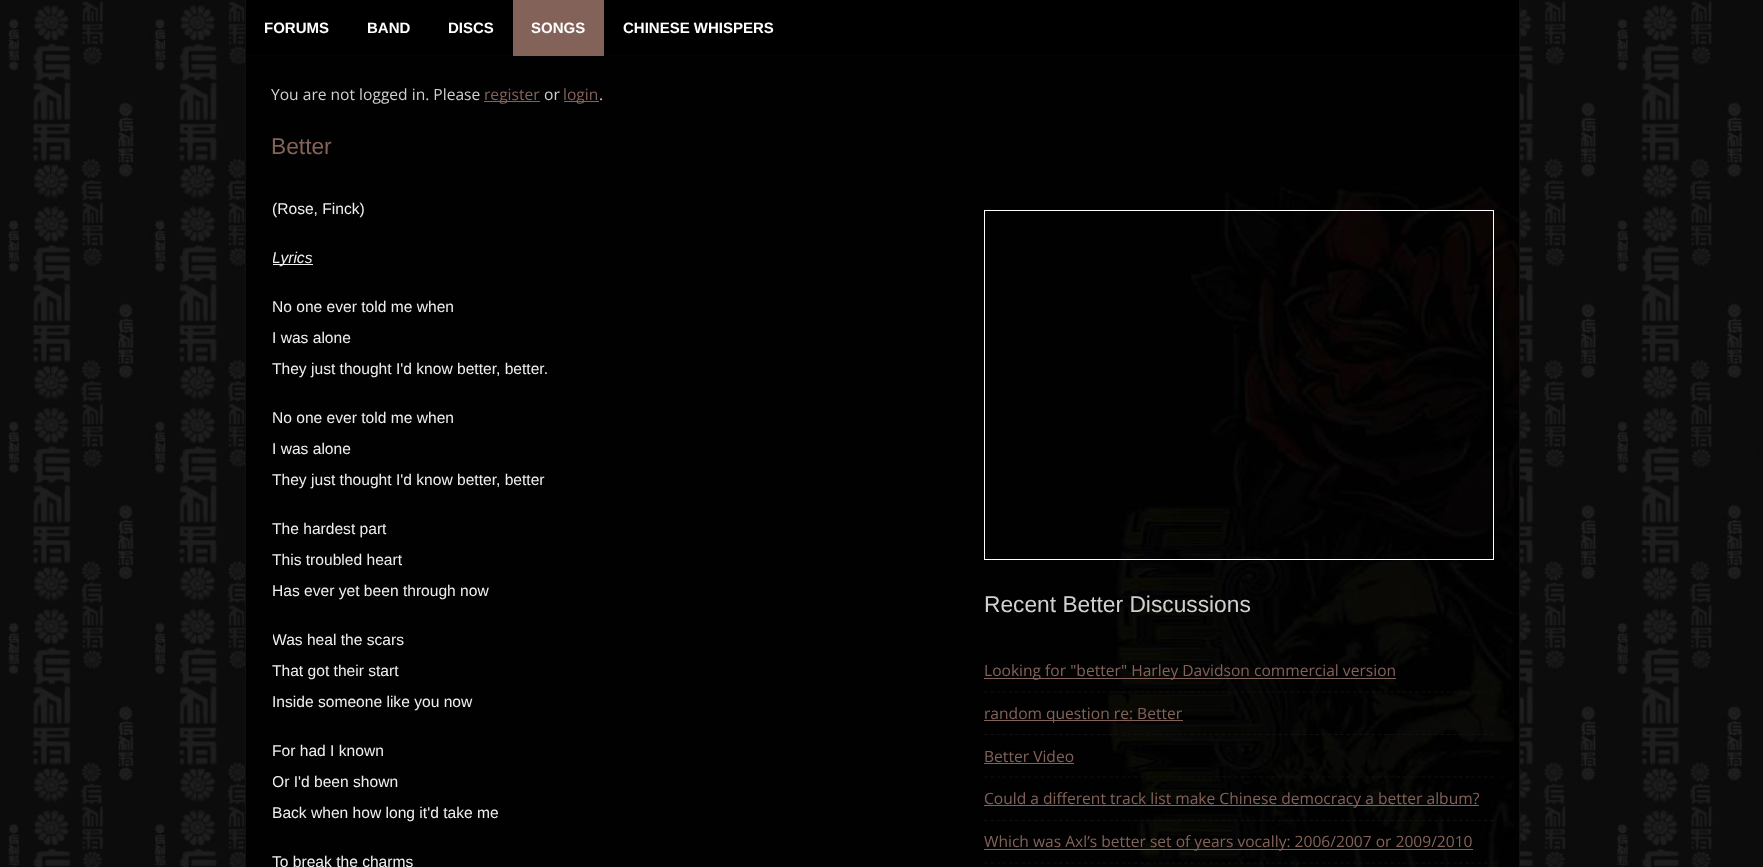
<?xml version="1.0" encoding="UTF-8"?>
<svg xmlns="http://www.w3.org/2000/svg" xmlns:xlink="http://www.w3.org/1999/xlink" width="1763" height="867">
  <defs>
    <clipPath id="clip1"><rect x="273" y="185" width="661" height="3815" /></clipPath>
  </defs>
  <rect width="100%" height="100%" fill="#ffffff" />
  <image x="0" y="0" width="1763" height="867" xlink:href="image1.png" />
  <rect x="1519" width="1" height="867" fill="#111111" />
  <rect x="245" width="1" height="867" fill="#111111" />
  <rect x="246" width="1273" height="55" fill="#000000" />
  <rect x="246" y="55" width="1273" height="1" fill="#030303" />
  <rect x="513" width="91" height="56" fill="#836359" />
  <rect x="246" y="56" width="1273" height="811" fill="#010101" />
  <image x="1108" y="187" width="411" height="680" xlink:href="image2.png" />
  <rect x="484" y="101" width="56" height="1" fill="#836359" />
  <rect x="564" y="101" width="35" height="1" fill="#836359" />
  <rect x="273" y="264" width="40" height="1" fill="#efefef" />
  <rect x="984.5" y="210.5" width="509" height="349" fill="none" stroke="#ffffff" />
  <path d="M 984 692 h 510" fill="none" stroke="#111111" stroke-width="1.2" stroke-dasharray="3.75 2.5" />
  <rect x="984" y="678" width="412" height="1" fill="#836359" />
  <path d="M 984 734.5 h 510" fill="none" stroke="#111111" stroke-width="1.2" stroke-dasharray="3.75 2.5" />
  <rect x="984" y="720" width="199" height="1" fill="#836359" />
  <path d="M 984 777 h 510" fill="none" stroke="#111111" stroke-width="1.2" stroke-dasharray="3.75 2.5" />
  <rect x="984" y="763" width="90" height="1" fill="#836359" />
  <path d="M 984 820.5 h 510" fill="none" stroke="#111111" stroke-width="1.2" stroke-dasharray="3.75 2.5" />
  <rect x="984" y="805" width="495" height="1" fill="#836359" />
  <path d="M 984 863 h 510" fill="none" stroke="#111111" stroke-width="1.2" stroke-dasharray="3.75 2.5" />
  <rect x="984" y="849" width="489" height="1" fill="#836359" />
  <text x="264" y="33" style="font-family: Liberation Sans; font-size: 15px; font-weight: bold; fill: #ffffff">FORUMS</text>
  <text x="367" y="33" style="font-family: Liberation Sans; font-size: 15px; font-weight: bold; fill: #ffffff">BAND</text>
  <text x="448" y="33" style="font-family: Liberation Sans; font-size: 15px; font-weight: bold; fill: #ffffff">DISCS</text>
  <text x="531" y="33" style="font-family: Liberation Sans; font-size: 15px; font-weight: bold; fill: #ffffff">SONGS</text>
  <text x="623" y="33" style="font-family: Liberation Sans; font-size: 15px; font-weight: bold; fill: #ffffff">CHINESE WHISPERS</text>
  <text x="271" y="100" style="font-family: Open Sans; font-size: 15.6px; fill: #d0d0d0">You are not logged in. Please</text>
  <text x="484" y="100" style="font-family: Open Sans; font-size: 15.6px; fill: #836359">register</text>
  <text x="544" y="100" style="font-family: Open Sans; font-size: 15.6px; fill: #d0d0d0">or</text>
  <text x="563" y="100" style="font-family: Open Sans; font-size: 15.6px; fill: #836359">login</text>
  <text x="599" y="100" style="font-family: Open Sans; font-size: 15.6px; fill: #d0d0d0">.</text>
  <text x="271" y="154" style="font-family: Liberation Sans; font-size: 22.75px; fill: #836359">Better</text>
  <text x="272" y="214" style="font-family: Liberation Sans; font-size: 15.6px; fill: #efefef">(Rose, Finck)</text>
  <g clip-path="url(#clip1)">
    <text x="272" y="263" style="font-family: Liberation Sans; font-size: 15.6px; font-style: italic; fill: #efefef">Lyrics</text>
  </g>
  <text x="272" y="312" style="font-family: Liberation Sans; font-size: 15.6px; fill: #efefef">No one ever told me when</text>
  <text x="272" y="343" style="font-family: Liberation Sans; font-size: 15.6px; fill: #efefef">I was alone</text>
  <text x="272" y="374" style="font-family: Liberation Sans; font-size: 15.6px; fill: #efefef">They just thought I'd know better, better.</text>
  <text x="272" y="423" style="font-family: Liberation Sans; font-size: 15.6px; fill: #efefef">No one ever told me when</text>
  <text x="272" y="454" style="font-family: Liberation Sans; font-size: 15.6px; fill: #efefef">I was alone</text>
  <text x="272" y="485" style="font-family: Liberation Sans; font-size: 15.6px; fill: #efefef">They just thought I'd know better, better</text>
  <text x="272" y="534" style="font-family: Liberation Sans; font-size: 15.6px; fill: #efefef">The hardest part</text>
  <text x="272" y="565" style="font-family: Liberation Sans; font-size: 15.6px; fill: #efefef">This troubled heart</text>
  <text x="272" y="596" style="font-family: Liberation Sans; font-size: 15.6px; fill: #efefef">Has ever yet been through now</text>
  <g clip-path="url(#clip1)">
    <text x="272" y="645" style="font-family: Liberation Sans; font-size: 15.6px; fill: #efefef">Was heal the scars</text>
  </g>
  <text x="272" y="676" style="font-family: Liberation Sans; font-size: 15.6px; fill: #efefef">That got their start</text>
  <text x="272" y="707" style="font-family: Liberation Sans; font-size: 15.6px; fill: #efefef">Inside someone like you now</text>
  <text x="272" y="756" style="font-family: Liberation Sans; font-size: 15.6px; fill: #efefef">For had I known</text>
  <g clip-path="url(#clip1)">
    <text x="272" y="787" style="font-family: Liberation Sans; font-size: 15.6px; fill: #efefef">Or I'd been shown</text>
  </g>
  <text x="272" y="818" style="font-family: Liberation Sans; font-size: 15.6px; fill: #efefef">Back when how long it'd take me</text>
  <text x="272" y="867" style="font-family: Liberation Sans; font-size: 15.6px; fill: #efefef">To break the charms</text>
  <text x="984" y="612" style="font-family: Liberation Sans; font-size: 22.75px; fill: #d0d0d0">Recent Better Discussions</text>
  <text x="984" y="676" style="font-family: Open Sans; font-size: 15.6px; fill: #836359">Looking for "better" Harley Davidson commercial version</text>
  <text x="984" y="719" style="font-family: Open Sans; font-size: 15.6px; fill: #836359">random question re: Better</text>
  <text x="984" y="762" style="font-family: Open Sans; font-size: 15.6px; fill: #836359">Better Video</text>
  <text x="984" y="804" style="font-family: Open Sans; font-size: 15.6px; fill: #836359">Could a different track list make Chinese democracy a better album?</text>
  <text x="984" y="847" style="font-family: Open Sans; font-size: 15.6px; fill: #836359">Which was Axl’s better set of years vocally: 2006/2007 or 2009/2010</text>
</svg>
